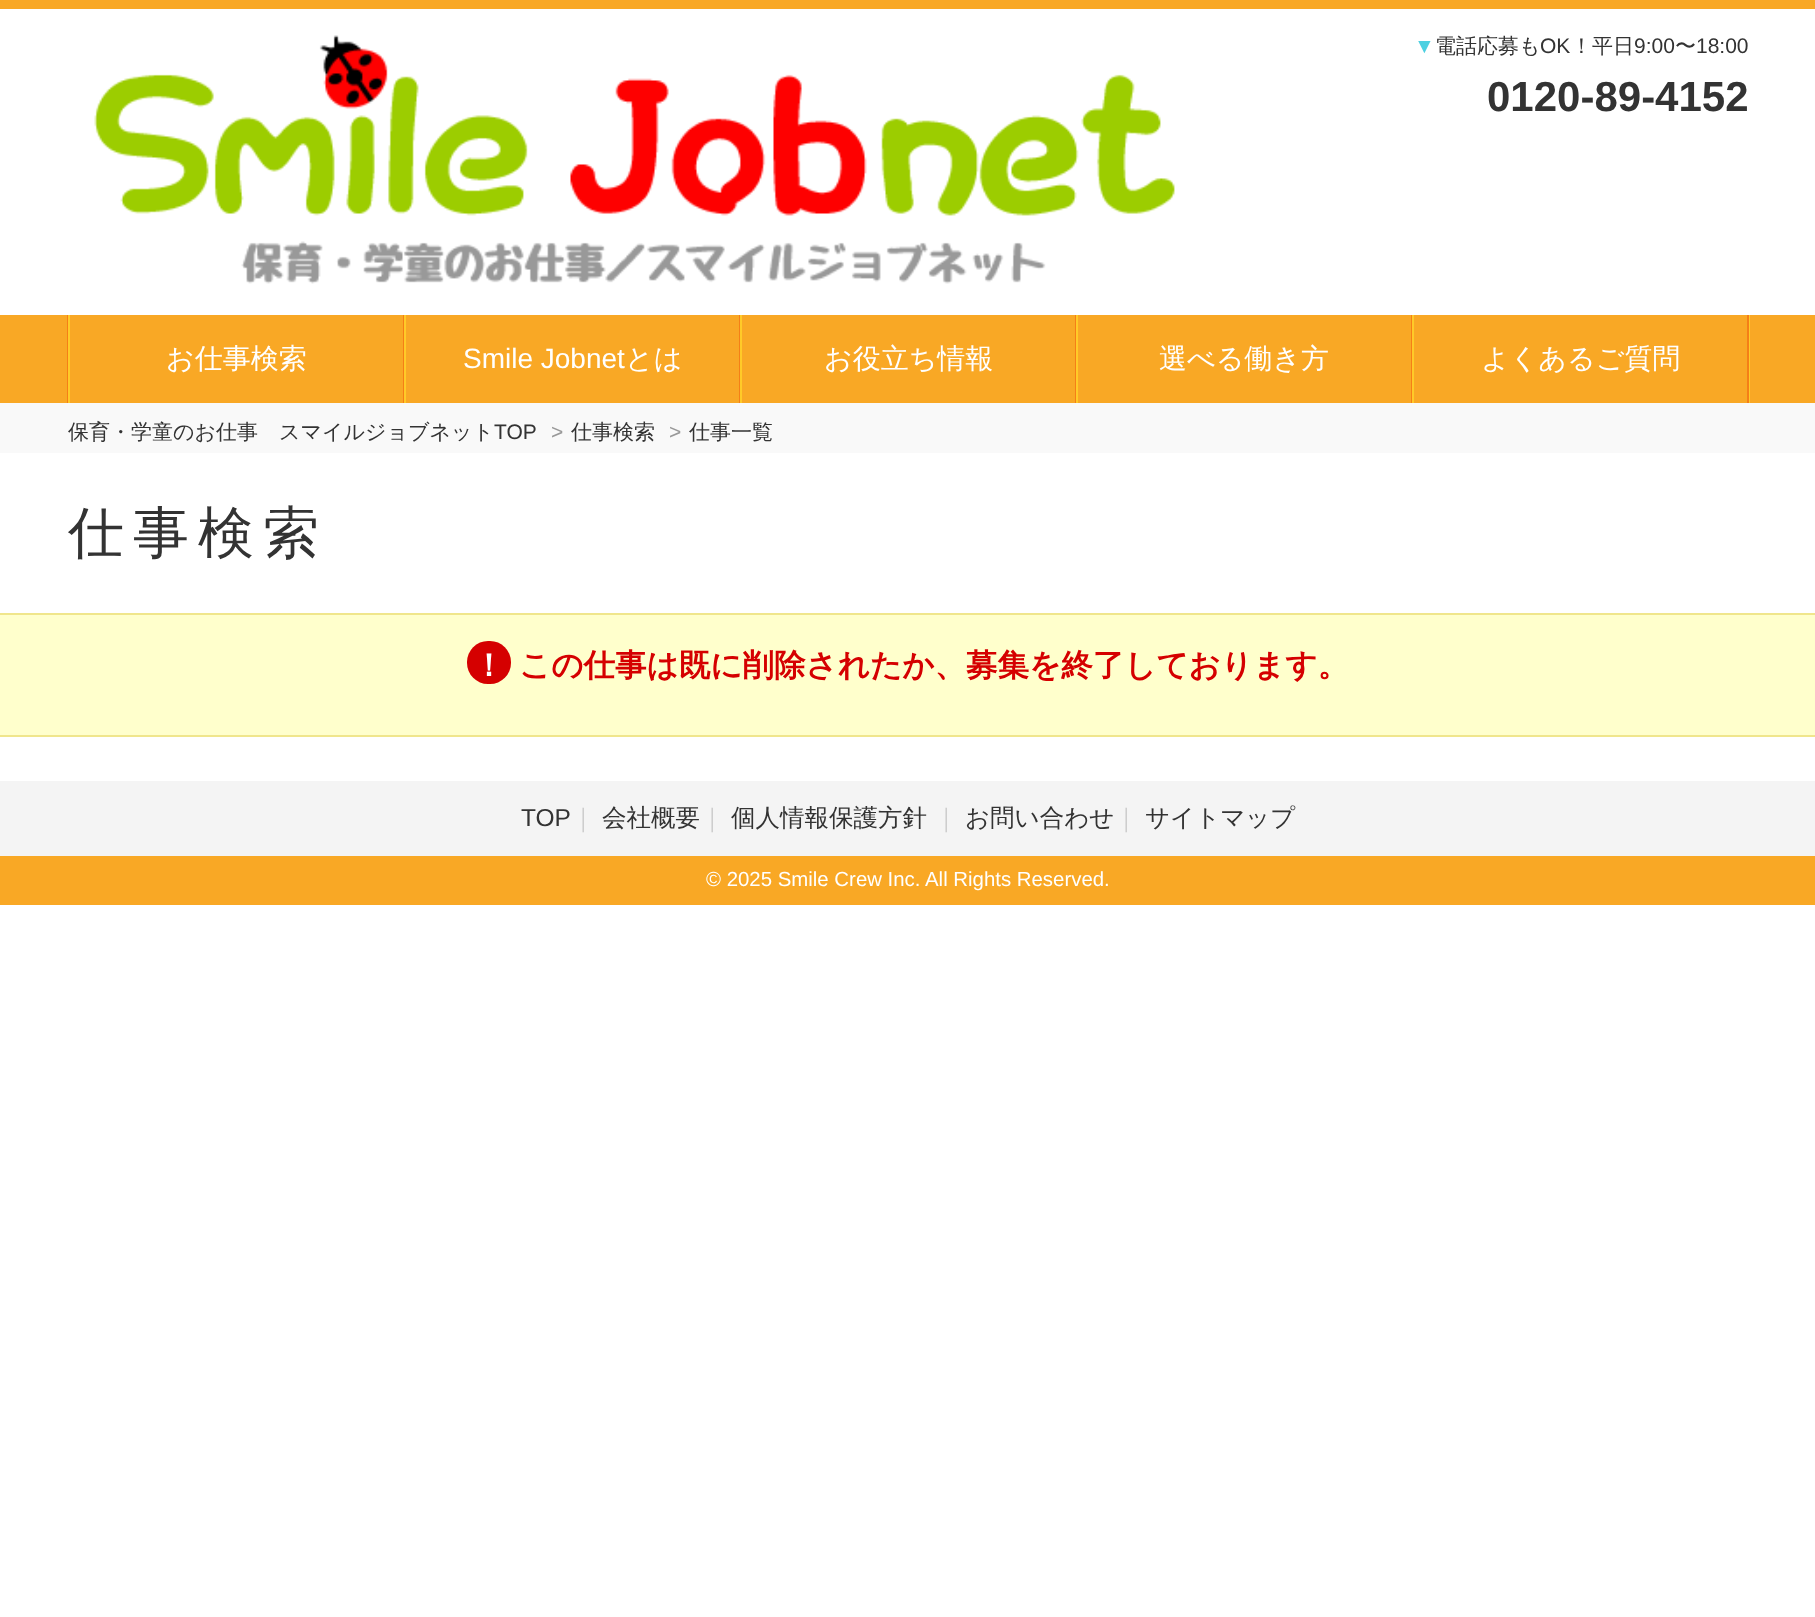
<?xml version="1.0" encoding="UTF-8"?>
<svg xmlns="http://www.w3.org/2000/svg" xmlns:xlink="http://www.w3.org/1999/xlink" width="1815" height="1617">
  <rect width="100%" height="100%" fill="#ffffff" />
  <rect width="1815" height="9" fill="#f9a825" />
  <image x="94" y="35" width="1081" height="249" xlink:href="image1.png" />
  <rect y="315" width="1815" height="88" fill="#f9a825" />
  <rect x="1749" y="315" width="1" height="88" fill="#ffca28" />
  <rect x="67" y="315" width="1" height="88" fill="#f57f17" />
  <rect x="403" y="315" width="1" height="88" fill="#f57f17" />
  <rect x="68" y="315" width="2" height="88" fill="#ffca28" />
  <rect x="739" y="315" width="1" height="88" fill="#f57f17" />
  <rect x="404" y="315" width="2" height="88" fill="#ffca28" />
  <rect x="1075" y="315" width="1" height="88" fill="#f57f17" />
  <rect x="740" y="315" width="2" height="88" fill="#ffca28" />
  <rect x="1411" y="315" width="1" height="88" fill="#f57f17" />
  <rect x="1076" y="315" width="2" height="88" fill="#ffca28" />
  <rect x="1747" y="315" width="2" height="88" fill="#f57f17" />
  <rect x="1412" y="315" width="2" height="88" fill="#ffca28" />
  <rect y="403" width="1815" height="50" fill="#f9f9f9" />
  <rect y="615" width="1815" height="120" fill="#ffffcc" />
  <rect y="613" width="1815" height="2" fill="#f0e68c" />
  <rect y="735" width="1815" height="2" fill="#f0e68c" />
  <rect x="467" y="641" width="44" height="43" rx="21" fill="#d50000" />
  <rect y="781" width="1815" height="75" fill="#f4f4f4" />
  <rect y="856" width="1815" height="49" fill="#f9a825" />
  <text x="1414" y="53" style="font-family: Liberation Sans; font-size: 21px; fill: #4dd0e1">▼</text>
  <text x="1435" y="53" style="font-family: WenQuanYi Zen Hei; font-size: 21px; font-weight: 500; fill: #333333">電話応募も</text>
  <text x="1540" y="53" style="font-family: Liberation Sans; font-size: 21px; fill: #333333">OK</text>
  <text x="1571" y="53" style="font-family: WenQuanYi Zen Hei; font-size: 21px; font-weight: 500; fill: #333333">！平日</text>
  <text x="1634" y="53" style="font-family: Liberation Sans; font-size: 21px; fill: #333333">9:00</text>
  <text x="1675" y="53" style="font-family: WenQuanYi Zen Hei; font-size: 21px; font-weight: 500; fill: #333333">〜</text>
  <text x="1696" y="53" style="font-family: Liberation Sans; font-size: 21px; fill: #333333">18:00</text>
  <text x="1487" y="111" style="font-family: Liberation Sans; font-size: 42px; font-weight: bold; fill: #333333">0120-89-4152</text>
  <text x="166" y="368" style="font-family: WenQuanYi Zen Hei; font-size: 28px; font-weight: 500; fill: #ffffff">お仕事検索</text>
  <text x="463" y="368" style="font-family: Liberation Sans; font-size: 28px; fill: #ffffff">Smile Jobnet</text>
  <text x="625" y="368" style="font-family: WenQuanYi Zen Hei; font-size: 28px; font-weight: 500; fill: #ffffff">とは</text>
  <text x="824" y="368" style="font-family: WenQuanYi Zen Hei; font-size: 28px; font-weight: 500; fill: #ffffff">お役立ち情報</text>
  <text x="1159" y="368" style="font-family: WenQuanYi Zen Hei; font-size: 28px; font-weight: 500; fill: #ffffff">選べる働き方</text>
  <text x="1481" y="368" style="font-family: WenQuanYi Zen Hei; font-size: 28px; font-weight: 500; fill: #ffffff">よくあるご質問</text>
  <text x="68" y="439" style="font-family: WenQuanYi Zen Hei; font-size: 21px; font-weight: 500; fill: #333333">保育・学童のお仕事　スマイルジョブネット</text>
  <text x="494" y="439" style="font-family: Liberation Sans; font-size: 21px; fill: #333333">TOP</text>
  <text x="551" y="439" style="font-family: Liberation Sans; font-size: 21px; fill: #999999">&gt;</text>
  <text x="571" y="439" style="font-family: WenQuanYi Zen Hei; font-size: 21px; font-weight: 500; fill: #333333">仕事検索</text>
  <text x="669" y="439" style="font-family: Liberation Sans; font-size: 21px; fill: #999999">&gt;</text>
  <text x="689" y="439" style="font-family: WenQuanYi Zen Hei; font-size: 21px; font-weight: 500; fill: #333333">仕事一覧</text>
  <text x="68" y="552" style="font-family: WenQuanYi Zen Hei; font-size: 56px; font-weight: 500; letter-spacing: 9px; fill: #333333">仕事検索</text>
  <text x="473" y="676" style="font-family: WenQuanYi Zen Hei; font-size: 31.5px; font-weight: bold; fill: #ffffff">！</text>
  <text x="519" y="676" style="font-family: WenQuanYi Zen Hei; font-size: 31.5px; font-weight: bold; fill: #d50000">この仕事は既に削除されたか、募集を終了しております。</text>
  <text x="521" y="826" style="font-family: Liberation Sans; font-size: 24.5px; fill: #333333">TOP</text>
  <text x="571" y="826" style="font-family: WenQuanYi Zen Hei; font-size: 24.5px; font-weight: 500; fill: #cccccc">｜</text>
  <text x="602" y="826" style="font-family: WenQuanYi Zen Hei; font-size: 24.5px; font-weight: 500; fill: #333333">会社概要</text>
  <text x="700" y="826" style="font-family: WenQuanYi Zen Hei; font-size: 24.5px; font-weight: 500; fill: #cccccc">｜</text>
  <text x="731" y="826" style="font-family: WenQuanYi Zen Hei; font-size: 24.5px; font-weight: 500; fill: #333333">個人情報保護方針</text>
  <text x="934" y="826" style="font-family: WenQuanYi Zen Hei; font-size: 24.5px; font-weight: 500; fill: #cccccc">｜</text>
  <text x="965" y="826" style="font-family: WenQuanYi Zen Hei; font-size: 24.5px; font-weight: 500; fill: #333333">お問い合わせ</text>
  <text x="1114" y="826" style="font-family: WenQuanYi Zen Hei; font-size: 24.5px; font-weight: 500; fill: #cccccc">｜</text>
  <text x="1145" y="826" style="font-family: WenQuanYi Zen Hei; font-size: 24.5px; font-weight: 500; fill: #333333">サイトマップ</text>
  <text x="706" y="886" style="font-family: Liberation Sans; font-size: 20.4px; fill: #ffffff">© 2025 Smile Crew Inc. All Rights Reserved.</text>
</svg>
